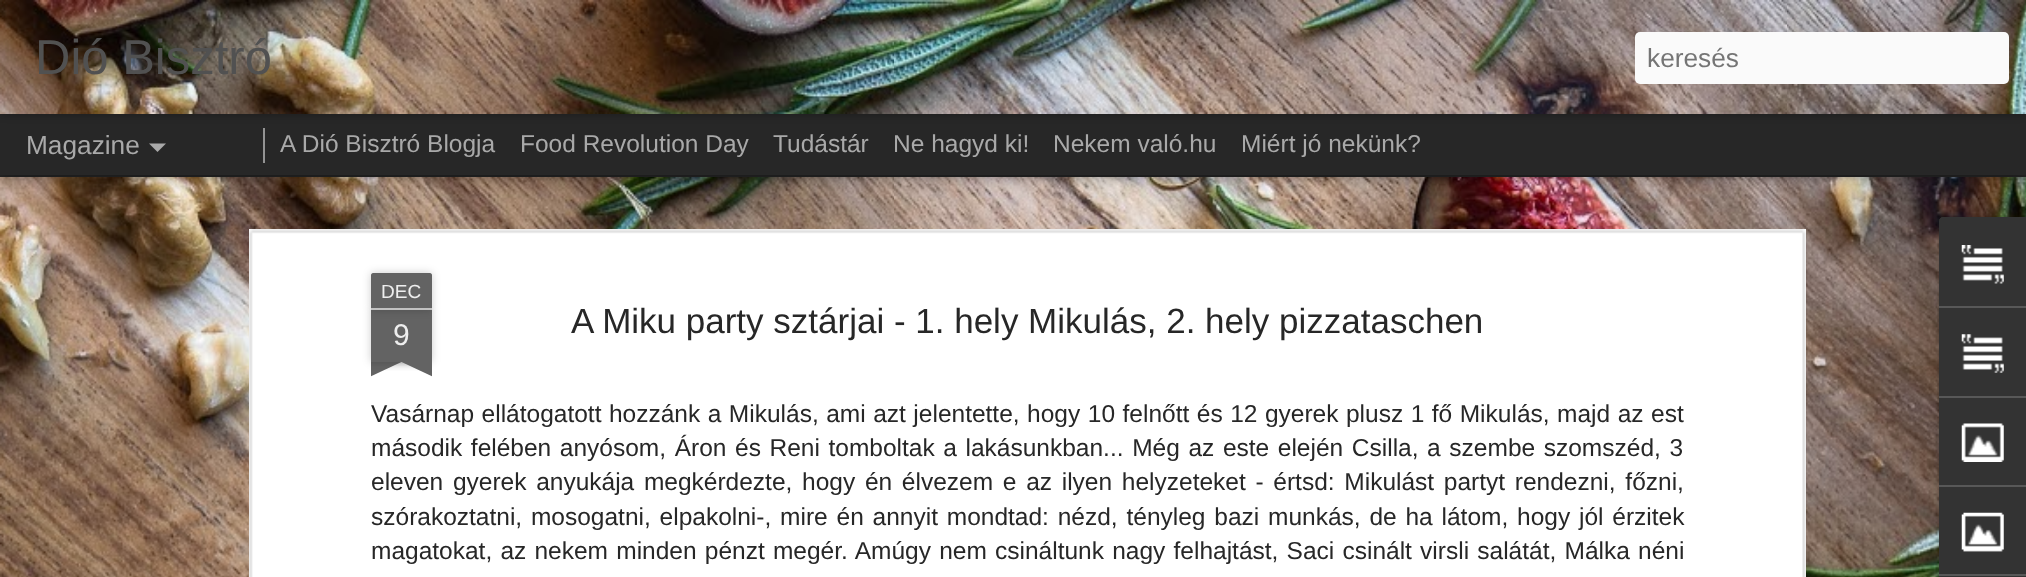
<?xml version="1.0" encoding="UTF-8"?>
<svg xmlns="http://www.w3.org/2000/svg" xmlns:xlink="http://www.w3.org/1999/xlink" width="2026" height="577">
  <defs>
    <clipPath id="clip1"><rect x="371" y="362" width="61" height="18" /></clipPath>
    <clipPath id="clip2"><rect x="371" y="362" width="61" height="18" /></clipPath>
  </defs>
  <rect width="100%" height="100%" fill="#272727" />
  <image x="0" y="177" width="2026" height="400" xlink:href="image2.png" />
  <rect y="114" width="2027" height="61" fill="#000000" fill-opacity="0.5" filter="blur(7px)" />
  <rect y="114" width="2026" height="61" fill="#272727" />
  <rect x="263" y="128" width="2" height="35" fill="#939393" />
  <rect width="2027" height="114" fill="#000000" fill-opacity="0.3" filter="blur(4.5px)" />
  <image x="0" y="0" width="2026" height="114" xlink:href="image1.png" />
  <rect x="1635" y="32" width="374" height="52" rx="5" fill="#fafafa" />
  <path d="M 149 143.5 h 17 l -8.5 8.5 z" fill="#a9a9a9" />
  <rect x="249" y="229" width="1557" height="348" fill="#ffffff" />
  <image x="249" y="229" width="1558" height="348" xlink:href="image3.png" />
  <rect x="371" y="310" width="61" height="52" fill="#000000" fill-opacity="0.2" filter="blur(4.5px)" />
  <rect x="371" y="310" width="61" height="52" fill="#636363" />
  <rect x="371" y="273" width="61" height="37" rx="2" fill="#000000" fill-opacity="0.2" filter="blur(4.5px)" />
  <path d="M 373 273 h 57 c 1 0 2 1 2 2 v 35 h -61 v -35 c 0 -1 1 -2 2 -2 z" fill="#636363" />
  <rect x="371" y="308" width="61" height="2" fill="#c1c1c1" />
  <g clip-path="url(#clip1)">
    <rect x="355" y="345" width="88" height="17" fill="#000000" fill-opacity="0.2" filter="blur(4.5px)" />
  </g>
  <g clip-path="url(#clip2)">
    <path d="M 356 364 l 79 -37 l 7 16 l -79 37 z" fill="#636363" />
  </g>
  <g clip-path="url(#clip1)">
    <rect x="361" y="345" width="87" height="17" fill="#000000" fill-opacity="0.2" filter="blur(4.5px)" />
  </g>
  <g clip-path="url(#clip2)">
    <path d="M 368 327 l 80 37 l -8 16 l -79 -37 z" fill="#636363" />
  </g>
  <rect x="1939" y="219" width="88" height="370" rx="4" fill="#000000" fill-opacity="0.3" filter="blur(2.5px)" />
  <path d="M 1943 217 h 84 v 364 h -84 c -2 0 -4 -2 -4 -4 v -356 c 0 -2 2 -4 4 -4 z" fill="#333333" />
  <path d="M 1943 217 h 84 v 89 h -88 v -85 c 0 -2 2 -4 4 -4 z" fill="#333333" />
  <image x="1961" y="245" width="43" height="39" xlink:href="image4.png" />
  <rect x="1939" y="306" width="87" height="2" fill="#585858" />
  <image x="1961" y="334" width="43" height="39" xlink:href="image5.png" />
  <rect x="1939" y="396" width="87" height="2" fill="#585858" />
  <image x="1961" y="423" width="43" height="39" xlink:href="image6.png" />
  <rect x="1939" y="485" width="87" height="2" fill="#585858" />
  <image x="1961" y="512" width="43" height="40" xlink:href="image7.png" />
  <rect x="1939" y="574" width="87" height="2" fill="#585858" />
  <text x="35" y="74" style="font-family: Liberation Sans; font-size: 49px; fill: #515151">Dió Bisztró</text>
  <text x="1647" y="67" style="font-family: Liberation Sans; font-size: 26.25px; fill: #757575">keresés</text>
  <text x="26" y="154" style="font-family: Liberation Sans; font-size: 26.25px; fill: #a9a9a9">Magazine</text>
  <text x="280" y="152" style="font-family: Liberation Sans; font-size: 24.5px; fill: #a9a9a9">A Dió Bisztró Blogja</text>
  <text x="520" y="152" style="font-family: Liberation Sans; font-size: 24.5px; fill: #a9a9a9">Food Revolution Day</text>
  <text x="773" y="152" style="font-family: Liberation Sans; font-size: 24.5px; fill: #a9a9a9">Tudástár</text>
  <text x="893" y="152" style="font-family: Liberation Sans; font-size: 24.5px; fill: #a9a9a9">Ne hagyd ki!</text>
  <text x="1053" y="152" style="font-family: Liberation Sans; font-size: 24.5px; fill: #a9a9a9">Nekem való.hu</text>
  <text x="1241" y="152" style="font-family: Liberation Sans; font-size: 24.5px; fill: #a9a9a9">Miért jó nekünk?</text>
  <text x="381" y="298" style="font-family: Liberation Sans; font-size: 19px; fill: #eeeeee">DEC</text>
  <text x="393" y="345" style="font-family: Liberation Sans; font-size: 30px; fill: #eeeeee">9</text>
  <text x="571" y="333" style="font-family: Liberation Sans; font-size: 35px; fill: #272727">A Miku party sztárjai - 1. hely Mikulás, 2. hely pizzataschen</text>
  <text x="371" y="422" word-spacing="0.7" style="font-family: Liberation Sans; font-size: 24.5px; fill: #272727">Vasárnap ellátogatott hozzánk a Mikulás, ami azt jelentette, hogy 10 felnőtt és 12 gyerek plusz 1 fő Mikulás, majd az est</text>
  <text x="371" y="456" word-spacing="1.8" style="font-family: Liberation Sans; font-size: 24.5px; fill: #272727">második felében anyósom, Áron és Reni tomboltak a lakásunkban... Még az este elején Csilla, a szembe szomszéd, 3</text>
  <text x="371" y="490" word-spacing="2.9" style="font-family: Liberation Sans; font-size: 24.5px; fill: #272727">eleven gyerek anyukája megkérdezte, hogy én élvezem e az ilyen helyzeteket - értsd: Mikulást partyt rendezni, főzni,</text>
  <text x="371" y="525" word-spacing="2" style="font-family: Liberation Sans; font-size: 24.5px; fill: #272727">szórakoztatni, mosogatni, elpakolni-, mire én annyit mondtad: nézd, tényleg bazi munkás, de ha látom, hogy jól érzitek</text>
  <text x="371" y="559" word-spacing="1.4" style="font-family: Liberation Sans; font-size: 24.5px; fill: #272727">magatokat, az nekem minden pénzt megér. Amúgy nem csináltunk nagy felhajtást, Saci csinált virsli salátát, Málka néni</text>
</svg>
